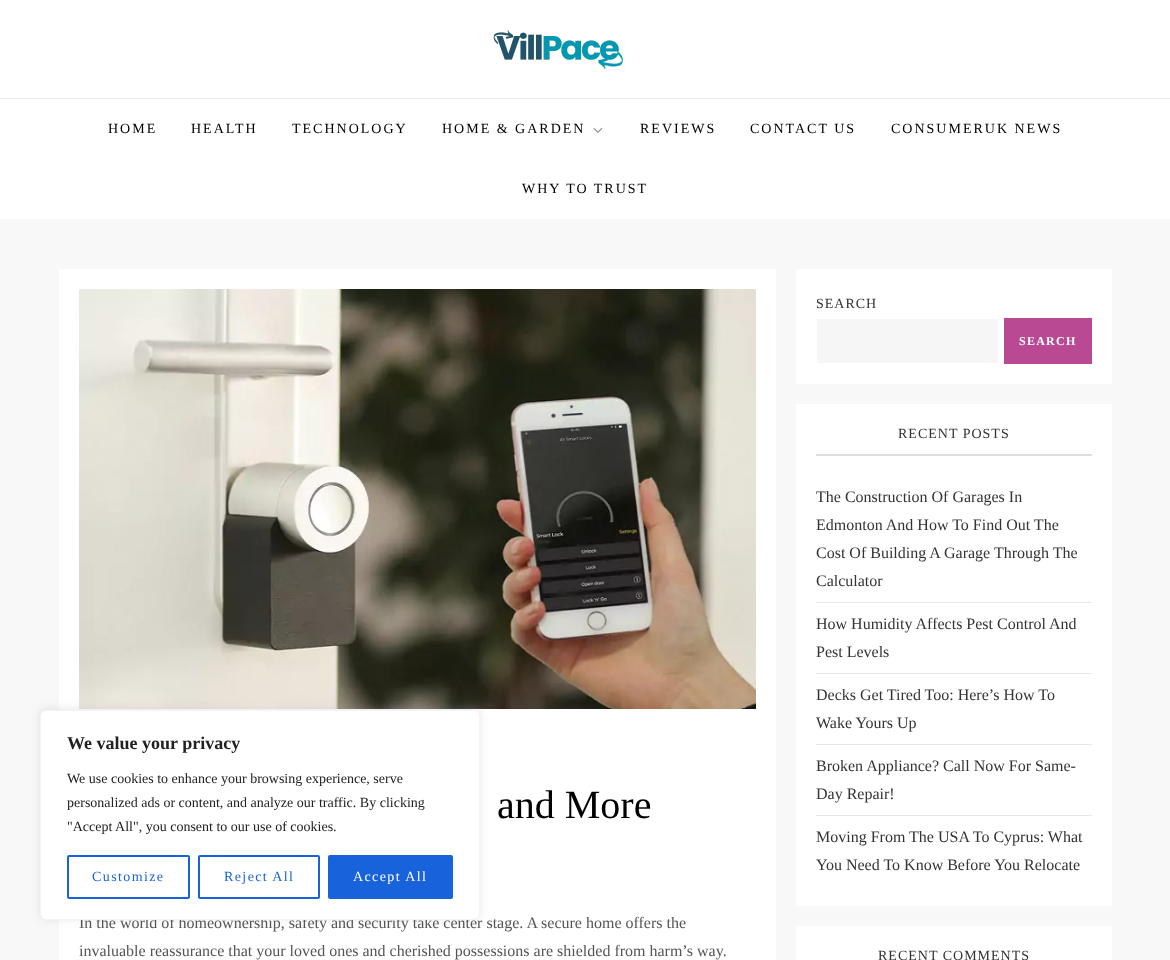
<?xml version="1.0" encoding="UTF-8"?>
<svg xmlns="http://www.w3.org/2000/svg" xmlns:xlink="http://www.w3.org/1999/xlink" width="1170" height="960">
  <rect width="100%" height="100%" fill="#f8f8f8" />
  <rect width="1170" height="219" fill="#ffffff" />
  <image x="493" y="30" width="130" height="40" xlink:href="image1.png" />
  <rect y="98" width="1170" height="1" fill="#eeeeee" />
  <image x="593" y="127" width="10" height="6" xlink:href="image2.png" />
  <rect x="59" y="269" width="717" height="691" fill="#ffffff" />
  <image x="79" y="289" width="677" height="420" xlink:href="image3.png" />
  <rect x="796" y="269" width="316" height="115" fill="#ffffff" />
  <rect x="817" y="319" width="181" height="44" fill="#f6f6f6" />
  <rect x="1004" y="318" width="88" height="46" fill="#ba4994" />
  <rect x="796" y="404" width="316" height="502" fill="#ffffff" />
  <rect x="816" y="454" width="276" height="2" fill="#dddddd" />
  <rect x="816" y="602" width="276" height="1" fill="#e7e7e7" />
  <rect x="816" y="673" width="276" height="1" fill="#e7e7e7" />
  <rect x="816" y="744" width="276" height="1" fill="#e7e7e7" />
  <rect x="816" y="815" width="276" height="1" fill="#e7e7e7" />
  <rect x="796" y="926" width="316" height="34" fill="#ffffff" />
  <rect x="40" y="709" width="440" height="210" rx="6" fill="#acabab" fill-opacity="0.3" filter="blur(5px)" />
  <text x="108" y="133" style="font-family: Liberation Serif; font-size: 14px; letter-spacing: 2px; fill: #000000">HOME</text>
  <text x="191" y="133" style="font-family: Liberation Serif; font-size: 14px; letter-spacing: 2px; fill: #000000">HEALTH</text>
  <text x="292" y="133" style="font-family: Liberation Serif; font-size: 14px; letter-spacing: 2px; fill: #000000">TECHNOLOGY</text>
  <text x="442" y="133" style="font-family: Liberation Serif; font-size: 14px; letter-spacing: 2px; fill: #000000">HOME &amp; GARDEN</text>
  <text x="640" y="133" style="font-family: Liberation Serif; font-size: 14px; letter-spacing: 2px; fill: #000000">REVIEWS</text>
  <text x="750" y="133" style="font-family: Liberation Serif; font-size: 14px; letter-spacing: 2px; fill: #000000">CONTACT US</text>
  <text x="891" y="133" style="font-family: Liberation Serif; font-size: 14px; letter-spacing: 2px; fill: #000000">CONSUMERUK NEWS</text>
  <text x="522" y="193" style="font-family: Liberation Serif; font-size: 14px; letter-spacing: 2px; fill: #000000">WHY TO TRUST</text>
  <text x="497" y="818" style="font-family: Liberation Serif; font-size: 40px; fill: #000000">and More</text>
  <text x="79" y="928" style="font-family: Liberation Serif; font-size: 16px; fill: #555555">In the world of homeownership, safety and security take center stage. A secure home offers the</text>
  <text x="79" y="956" style="font-family: Liberation Serif; font-size: 16px; fill: #555555">invaluable reassurance that your loved ones and cherished possessions are shielded from harm’s way.</text>
  <text x="816" y="308" style="font-family: Liberation Serif; font-size: 14px; letter-spacing: 1px; fill: #333333">SEARCH</text>
  <text x="1019" y="345" style="font-family: Liberation Serif; font-size: 12px; font-weight: bold; letter-spacing: 1.25px; fill: #ffffff">SEARCH</text>
  <text x="898" y="438" style="font-family: Liberation Serif; font-size: 14px; letter-spacing: 1px; fill: #333333">RECENT POSTS</text>
  <text x="816" y="502" style="font-family: Liberation Serif; font-size: 16px; fill: #333333">The Construction Of Garages In</text>
  <text x="816" y="530" style="font-family: Liberation Serif; font-size: 16px; fill: #333333">Edmonton And How To Find Out The</text>
  <text x="816" y="558" style="font-family: Liberation Serif; font-size: 16px; fill: #333333">Cost Of Building A Garage Through The</text>
  <text x="816" y="586" style="font-family: Liberation Serif; font-size: 16px; fill: #333333">Calculator</text>
  <text x="816" y="629" style="font-family: Liberation Serif; font-size: 16px; fill: #333333">How Humidity Affects Pest Control And</text>
  <text x="816" y="657" style="font-family: Liberation Serif; font-size: 16px; fill: #333333">Pest Levels</text>
  <text x="816" y="700" style="font-family: Liberation Serif; font-size: 16px; fill: #333333">Decks Get Tired Too: Here’s How To</text>
  <text x="816" y="728" style="font-family: Liberation Serif; font-size: 16px; fill: #333333">Wake Yours Up</text>
  <text x="816" y="771" style="font-family: Liberation Serif; font-size: 16px; fill: #333333">Broken Appliance? Call Now For Same-</text>
  <text x="816" y="799" style="font-family: Liberation Serif; font-size: 16px; fill: #333333">Day Repair!</text>
  <text x="816" y="842" style="font-family: Liberation Serif; font-size: 16px; fill: #333333">Moving From The USA To Cyprus: What</text>
  <text x="816" y="870" style="font-family: Liberation Serif; font-size: 16px; fill: #333333">You Need To Know Before You Relocate</text>
  <text x="878" y="960" style="font-family: Liberation Serif; font-size: 14px; letter-spacing: 1px; fill: #333333">RECENT COMMENTS</text>
  <rect x="40.5" y="710.5" width="439" height="209" rx="5.5" fill="#ffffff" stroke="#f4f4f4" />
  <text x="67" y="749" style="font-family: Liberation Serif; font-size: 18px; font-weight: bold; fill: #212121">We value your privacy</text>
  <text x="67" y="783" style="font-family: Liberation Serif; font-size: 14px; fill: #212121">We use cookies to enhance your browsing experience, serve</text>
  <text x="67" y="807" style="font-family: Liberation Serif; font-size: 14px; fill: #212121">personalized ads or content, and analyze our traffic. By clicking</text>
  <text x="67" y="831" style="font-family: Liberation Serif; font-size: 14px; fill: #212121">"Accept All", you consent to our use of cookies.</text>
  <rect x="68" y="856" width="121" height="42" rx="1" fill="none" stroke="#1863dc" stroke-width="2" />
  <text x="92" y="881" style="font-family: Liberation Serif; font-size: 14px; letter-spacing: 1.4px; fill: #1863dc">Customize</text>
  <rect x="199" y="856" width="120" height="42" rx="1" fill="none" stroke="#1863dc" stroke-width="2" />
  <text x="224" y="881" style="font-family: Liberation Serif; font-size: 14px; letter-spacing: 1.4px; fill: #1863dc">Reject All</text>
  <rect x="329" y="856" width="123" height="42" rx="1" fill="#1863dc" stroke="#1863dc" stroke-width="2" />
  <text x="353" y="881" style="font-family: Liberation Serif; font-size: 14px; letter-spacing: 1.4px; fill: #ffffff">Accept All</text>
</svg>
